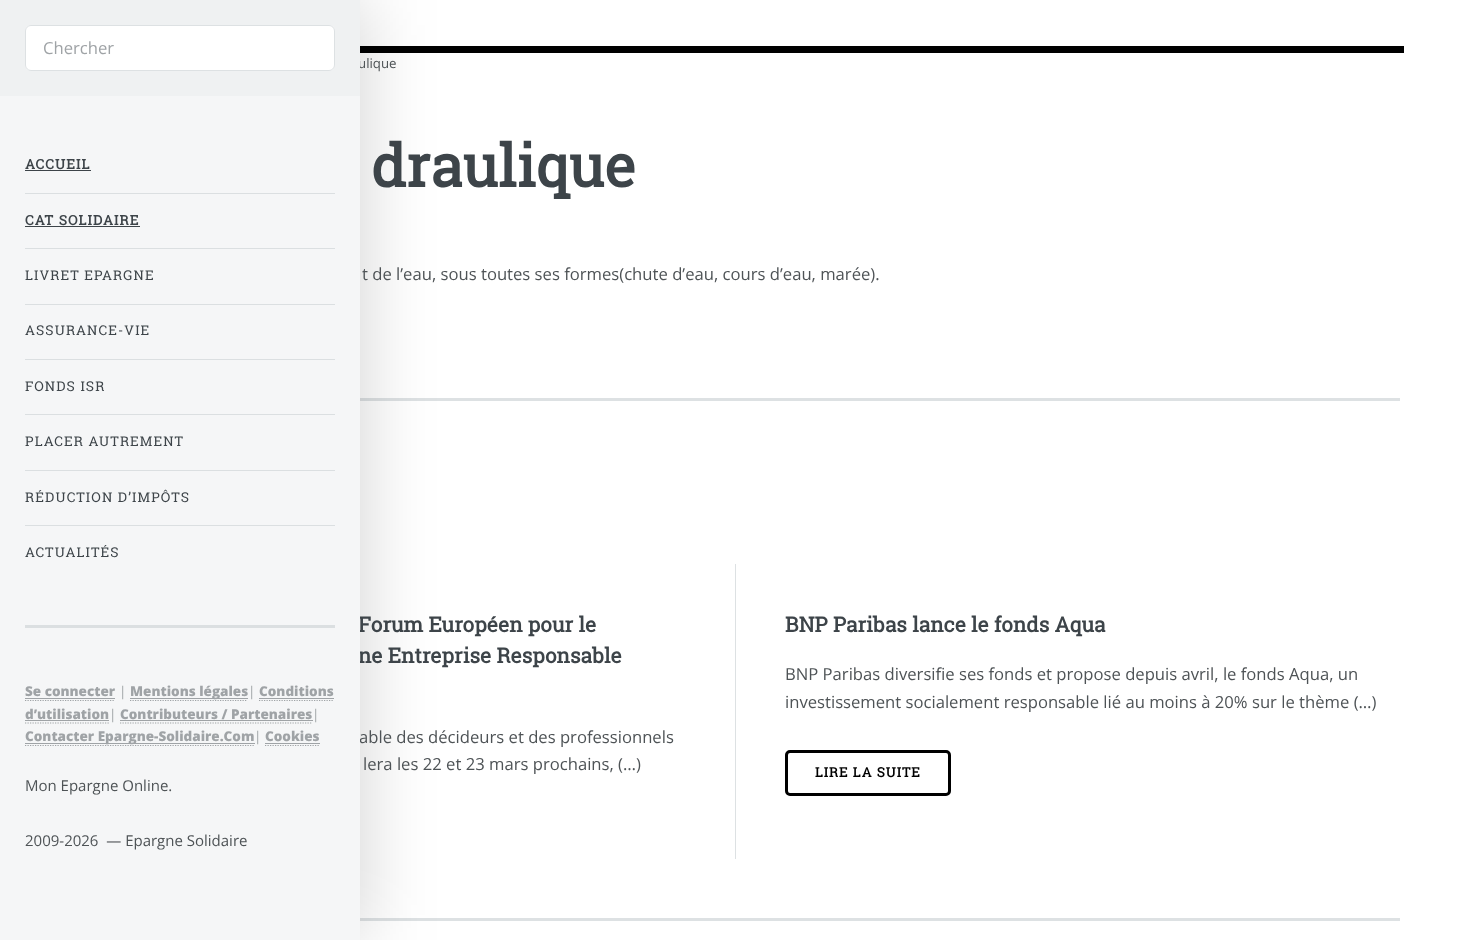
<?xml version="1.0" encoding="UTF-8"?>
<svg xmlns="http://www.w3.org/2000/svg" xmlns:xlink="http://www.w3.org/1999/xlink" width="1469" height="940">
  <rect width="100%" height="100%" fill="#ffffff" />
  <rect x="360" y="46" width="1044" height="7" fill="#000000" />
  <rect x="360" y="398" width="1040" height="3" fill="#dde1e3" />
  <rect x="360" y="918" width="1040" height="3" fill="#dde1e3" />
  <rect width="360" height="940" fill="#000000" fill-opacity="0.18" filter="blur(37.5px)" />
  <rect x="735" y="564" width="1" height="295" fill="#dde1e3" />
  <rect x="786.5" y="751.5" width="163" height="43" rx="3.5" fill="none" stroke="#000000" stroke-width="3" />
  <text x="358" y="68" style="font-family: Open Sans; font-size: 13.25px; fill: #4e5356">ulique</text>
  <rect width="360" height="96" fill="#eff1f2" />
  <rect x="25" y="25" width="310" height="46" rx="6" fill="#ffffff" />
  <rect x="25.5" y="25.5" width="309" height="45" rx="5.5" fill="none" stroke="#d2d7d9" stroke-opacity="0.75" />
  <text x="43" y="54" style="font-family: Open Sans; font-size: 16.65px; fill: #9fa3a6">Chercher</text>
  <text x="371" y="187" style="font-family: Roboto Slab; font-size: 58.5px; font-weight: bold; fill: #3d4449">draulique</text>
  <text x="362" y="280" style="font-family: Open Sans; font-size: 16.65px; fill: #4e5356">t de l’eau, sous toutes ses formes(chute d’eau, cours d’eau, marée).</text>
  <text x="358" y="632" style="font-family: Roboto Slab; font-size: 20.8px; font-weight: bold; fill: #3d4449">Forum Européen pour le</text>
  <text x="358" y="663" style="font-family: Roboto Slab; font-size: 20.8px; font-weight: bold; fill: #3d4449">ne Entreprise Responsable</text>
  <text x="359" y="743" style="font-family: Open Sans; font-size: 16.65px; fill: #4e5356">able des décideurs et des professionnels</text>
  <rect y="96" width="360" height="844" fill="#f5f6f7" />
  <text x="25" y="557" style="font-family: Roboto Slab; font-size: 13.5px; letter-spacing: 1.1px; fill: #3d4449">ACTUALITÉS</text>
  <text x="25" y="502" style="font-family: Roboto Slab; font-size: 13.5px; letter-spacing: 1.1px; fill: #3d4449">RÉDUCTION D’IMPÔTS</text>
  <text x="25" y="446" style="font-family: Roboto Slab; font-size: 13.5px; letter-spacing: 1.1px; fill: #3d4449">PLACER AUTREMENT</text>
  <text x="25" y="391" style="font-family: Roboto Slab; font-size: 13.5px; letter-spacing: 1.1px; fill: #3d4449">FONDS ISR</text>
  <text x="25" y="335" style="font-family: Roboto Slab; font-size: 13.5px; letter-spacing: 1.1px; fill: #3d4449">ASSURANCE-VIE</text>
  <text x="25" y="280" style="font-family: Roboto Slab; font-size: 13.5px; letter-spacing: 1.1px; fill: #3d4449">LIVRET EPARGNE</text>
  <text x="25" y="846" style="font-family: Open Sans; font-size: 15px; fill: #4e5356" xml:space="preserve">2009-2026  — Epargne Solidaire</text>
  <text x="25" y="791" style="font-family: Open Sans; font-size: 15px; fill: #4e5356">Mon Epargne Online.</text>
  <text x="265" y="741" style="font-family: Open Sans; font-size: 13.5px; font-weight: 800; fill: #9fa3a6">Cookies</text>
  <rect x="265" y="743" width="55" height="1" fill="#9fa3a6" />
  <path d="M 265 745.5 h 55" fill="none" stroke="#9fa3a6" stroke-width="1.2" stroke-dasharray="1.25 1.25" />
  <text x="254" y="741" style="font-family: Open Sans; font-size: 13.5px; fill: #9fa3a6">|</text>
  <rect x="25" y="743" width="230" height="1" fill="#9fa3a6" />
  <path d="M 25 745.5 h 230" fill="none" stroke="#9fa3a6" stroke-width="1.2" stroke-dasharray="1.25 1.25" />
  <text x="25" y="741" style="font-family: Open Sans; font-size: 13.5px; font-weight: 800; fill: #9fa3a6">Contacter Epargne-Solidaire.Com</text>
  <text x="312" y="719" style="font-family: Open Sans; font-size: 13.5px; fill: #9fa3a6">|</text>
  <text x="120" y="719" style="font-family: Open Sans; font-size: 13.5px; font-weight: 800; fill: #9fa3a6">Contributeurs / Partenaires</text>
  <rect x="120" y="720" width="193" height="1" fill="#9fa3a6" />
  <path d="M 120 723 h 192.5" fill="none" stroke="#9fa3a6" stroke-width="1.2" stroke-dasharray="1.25 1.25" />
  <text x="109" y="719" style="font-family: Open Sans; font-size: 13.5px; fill: #9fa3a6">|</text>
  <text x="25" y="719" style="font-family: Open Sans; font-size: 13.5px; font-weight: 800; fill: #9fa3a6">d’utilisation</text>
  <rect x="25" y="720" width="84" height="1" fill="#9fa3a6" />
  <text x="259" y="696" style="font-family: Open Sans; font-size: 13.5px; font-weight: 800; fill: #9fa3a6">Conditions</text>
  <rect x="259" y="698" width="75" height="1" fill="#9fa3a6" />
  <path d="M 25 723 h 84" fill="none" stroke="#9fa3a6" stroke-width="1.2" stroke-dasharray="1.25 1.25" />
  <path d="M 259 700.5 h 75" fill="none" stroke="#9fa3a6" stroke-width="1.2" stroke-dasharray="1.25 1.25" />
  <text x="248" y="696" style="font-family: Open Sans; font-size: 13.5px; fill: #9fa3a6">|</text>
  <rect x="130" y="698" width="118" height="1" fill="#9fa3a6" />
  <path d="M 130 700.5 h 117.5" fill="none" stroke="#9fa3a6" stroke-width="1.2" stroke-dasharray="1.25 1.25" />
  <text x="130" y="696" style="font-family: Open Sans; font-size: 13.5px; font-weight: 800; fill: #9fa3a6">Mentions légales</text>
  <text x="119" y="696" style="font-family: Open Sans; font-size: 13.5px; fill: #9fa3a6">|</text>
  <text x="25" y="696" style="font-family: Open Sans; font-size: 13.5px; font-weight: 800; fill: #9fa3a6">Se connecter</text>
  <rect x="25" y="698" width="90" height="1" fill="#9fa3a6" />
  <path d="M 25 700.5 h 90" fill="none" stroke="#9fa3a6" stroke-width="1.2" stroke-dasharray="1.25 1.25" />
  <text x="25" y="225" style="font-family: Roboto Slab; font-size: 13.5px; font-weight: bold; letter-spacing: 1.1px; fill: #3d4449">CAT SOLIDAIRE</text>
  <rect x="25" y="226" width="115" height="1" fill="#3d4449" />
  <text x="25" y="169" style="font-family: Roboto Slab; font-size: 13.5px; font-weight: bold; letter-spacing: 1.1px; fill: #3d4449">ACCUEIL</text>
  <rect x="25" y="170" width="66" height="1" fill="#3d4449" />
  <rect x="25" y="525" width="310" height="1" fill="#dbdfe1" />
  <rect x="25" y="470" width="310" height="1" fill="#dbdfe1" />
  <rect x="25" y="414" width="310" height="1" fill="#dbdfe1" />
  <rect x="25" y="359" width="310" height="1" fill="#dbdfe1" />
  <rect x="25" y="304" width="310" height="1" fill="#dbdfe1" />
  <rect x="25" y="248" width="310" height="1" fill="#dbdfe1" />
  <rect x="25" y="193" width="310" height="1" fill="#dbdfe1" />
  <rect x="25" y="625" width="310" height="3" fill="#dbdfe1" />
  <text x="363" y="770" style="font-family: Open Sans; font-size: 16.65px; fill: #4e5356">lera les 22 et 23 mars prochains, (…)</text>
  <text x="785" y="632" style="font-family: Roboto Slab; font-size: 20.8px; font-weight: bold; fill: #3d4449">BNP Paribas lance le fonds Aqua</text>
  <text x="785" y="680" style="font-family: Open Sans; font-size: 16.65px; fill: #4e5356">BNP Paribas diversifie ses fonds et propose depuis avril, le fonds Aqua, un</text>
  <text x="785" y="708" style="font-family: Open Sans; font-size: 16.65px; fill: #4e5356">investissement socialement responsable lié au moins à 20% sur le thème (…)</text>
  <text x="815" y="777" style="font-family: Roboto Slab; font-size: 13.25px; font-weight: bold; letter-spacing: 1px; fill: #000000">LIRE LA SUITE</text>
</svg>
